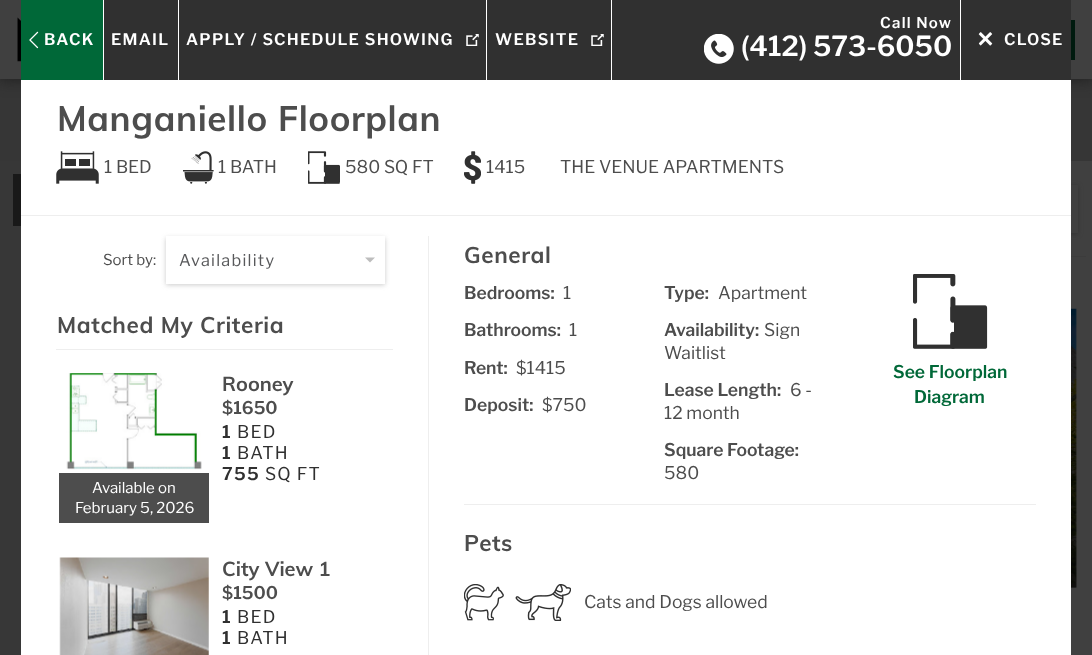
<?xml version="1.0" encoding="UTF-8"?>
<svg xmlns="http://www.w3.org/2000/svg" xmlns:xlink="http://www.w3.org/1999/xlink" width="1092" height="655">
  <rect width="100%" height="100%" fill="#404040" />
  <rect y="79" width="1092" height="82" fill="#363636" />
  <rect x="-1" y="-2" width="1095" height="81" fill="#1c1c1c" filter="blur(8px)" />
  <rect width="1092" height="79" fill="#404040" />
  <image x="17" y="17" width="4" height="45" xlink:href="image1.png" />
  <rect x="1071" y="20" width="4" height="40" fill="#001a0e" />
  <rect x="878" y="186" width="200" height="48" fill="#262626" fill-opacity="0.5" filter="blur(2.5px)" />
  <rect x="21" y="80" width="1050" height="575" fill="#ffffff" />
  <rect x="104" width="967" height="80" fill="#303030" />
  <rect x="21" width="82" height="80" fill="#006838" />
  <rect x="103" width="1" height="80" fill="#ffffff" />
  <image x="29" y="31" width="10" height="18" xlink:href="image2.png" />
  <rect x="178" width="1" height="80" fill="#ffffff" />
  <rect x="486" width="1" height="80" fill="#ffffff" />
  <image x="466" y="34" width="13" height="12" xlink:href="image3.png" />
  <rect x="611" width="1" height="80" fill="#ffffff" />
  <image x="591" y="34" width="13" height="12" xlink:href="image3.png" />
  <image x="704" y="34" width="30" height="30" xlink:href="image4.png" />
  <rect x="960" width="1" height="80" fill="#ffffff" />
  <rect x="21" y="215" width="1050" height="1" fill="#eeeeee" />
  <image x="56" y="151" width="43" height="33" xlink:href="image5.png" />
  <image x="183" y="151" width="31" height="33" xlink:href="image6.png" />
  <image x="308" y="151" width="32" height="33" xlink:href="image7.png" />
  <image x="464" y="151" width="17" height="33" xlink:href="image8.png" />
  <rect x="166" y="238" width="219" height="47" fill="#979797" fill-opacity="0.5" filter="blur(2.5px)" />
  <rect x="166" y="236" width="219" height="48" fill="#ffffff" />
  <path d="M 365 257.5 h 10 l -5 5 z" fill="#bdbdbd" />
  <rect x="56" y="349" width="337" height="1" fill="#eeeeee" />
  <image x="66" y="373" width="136" height="97" xlink:href="image9.png" />
  <rect x="59" y="473" width="150" height="50" fill="#4d4d4d" />
  <image x="59" y="557" width="150" height="98" xlink:href="image10.png" />
  <rect x="428" y="236" width="1" height="419" fill="#eeeeee" />
  <rect x="464" y="504" width="572" height="1" fill="#eeeeee" />
  <image x="913" y="274" width="75" height="75" xlink:href="image11.png" />
  <image x="464" y="584" width="107" height="37" xlink:href="image12.png" />
  <rect y="161" width="21" height="494" fill="#373737" />
  <rect x="13" y="174" width="8" height="52" fill="#191919" />
  <rect x="1071" y="185" width="7" height="48" fill="#404040" />
  <rect x="1071" y="256" width="15" height="1" fill="#3c3c3c" />
  <image x="1071" y="308" width="6" height="280" xlink:href="image13.png" />
  <image x="1071" y="443" width="6" height="145" xlink:href="image14.png" />
  <text x="44" y="45" style="font-family: Libre Franklin; font-size: 16px; font-weight: 600; letter-spacing: 1.25px; fill: #ffffff">BACK</text>
  <text x="111" y="45" style="font-family: Libre Franklin; font-size: 16px; font-weight: 600; letter-spacing: 1.25px; fill: #ffffff">EMAIL</text>
  <text x="186" y="45" style="font-family: Libre Franklin; font-size: 16px; font-weight: 600; letter-spacing: 1.25px; fill: #ffffff">APPLY / SCHEDULE SHOWING</text>
  <text x="495" y="45" style="font-family: Libre Franklin; font-size: 16px; font-weight: 600; letter-spacing: 1.25px; fill: #ffffff">WEBSITE</text>
  <text x="880" y="28" style="font-family: Libre Franklin; font-size: 15px; font-weight: 600; letter-spacing: 1.25px; fill: #ffffff">Call Now</text>
  <text x="741" y="56" style="font-family: Libre Franklin; font-size: 27.5px; font-weight: 600; fill: #ffffff">(412) 573-6050</text>
  <text x="977" y="50" style="font-family: Libre Franklin; font-size: 30px; font-weight: 600; letter-spacing: 1.25px; fill: #ffffff">×</text>
  <text x="1004" y="45" style="font-family: Libre Franklin; font-size: 16px; font-weight: 600; letter-spacing: 1.25px; fill: #ffffff">CLOSE</text>
  <text x="57" y="131" style="font-family: Muli; font-size: 35px; font-weight: bold; letter-spacing: 0.6px; fill: #4d4d4d">Manganiello Floorplan</text>
  <text x="104" y="173" style="font-family: Libre Franklin; font-size: 17.5px; fill: #4d4d4d">1 BED</text>
  <text x="218" y="173" style="font-family: Libre Franklin; font-size: 17.5px; fill: #4d4d4d">1 BATH</text>
  <text x="345" y="173" style="font-family: Libre Franklin; font-size: 17.5px; fill: #4d4d4d">580 SQ FT</text>
  <text x="486" y="173" style="font-family: Libre Franklin; font-size: 17.5px; fill: #4d4d4d">1415</text>
  <text x="560" y="173" style="font-family: Libre Franklin; font-size: 17.5px; fill: #4d4d4d">THE VENUE APARTMENTS</text>
  <text x="103" y="265" style="font-family: Libre Franklin; font-size: 15px; fill: #4d4d4d">Sort by:</text>
  <text x="179" y="266" style="font-family: Libre Franklin; font-size: 16.25px; letter-spacing: 1.25px; fill: #58595b">Availability</text>
  <text x="57" y="333" style="font-family: Muli; font-size: 22.5px; font-weight: bold; letter-spacing: 0.6px; fill: #4d4d4d">Matched My Criteria</text>
  <text x="222" y="391" style="font-family: Muli; font-size: 20px; font-weight: bold; fill: #4d4d4d">Rooney</text>
  <text x="222" y="414" style="font-family: Libre Franklin; font-size: 17.5px; font-weight: 600; fill: #4d4d4d">$1650</text>
  <text x="222" y="438" style="font-family: Libre Franklin; font-size: 17.5px; font-weight: 600; letter-spacing: 1.25px; fill: #303030">1</text>
  <text x="237" y="438" style="font-family: Libre Franklin; font-size: 17.5px; letter-spacing: 1.25px; fill: #303030">BED</text>
  <text x="222" y="459" style="font-family: Libre Franklin; font-size: 17.5px; font-weight: 600; letter-spacing: 1.25px; fill: #303030">1</text>
  <text x="237" y="459" style="font-family: Libre Franklin; font-size: 17.5px; letter-spacing: 1.25px; fill: #303030">BATH</text>
  <text x="222" y="480" style="font-family: Libre Franklin; font-size: 17.5px; font-weight: 600; letter-spacing: 1.25px; fill: #303030">755</text>
  <text x="265" y="480" style="font-family: Libre Franklin; font-size: 17.5px; letter-spacing: 1.25px; fill: #303030">SQ FT</text>
  <text x="92" y="493" style="font-family: Libre Franklin; font-size: 15px; fill: #ffffff">Available on</text>
  <text x="75" y="513" style="font-family: Libre Franklin; font-size: 15px; fill: #ffffff">February 5, 2026</text>
  <text x="222" y="576" style="font-family: Muli; font-size: 20px; font-weight: bold; fill: #4d4d4d">City View 1</text>
  <text x="222" y="599" style="font-family: Libre Franklin; font-size: 17.5px; font-weight: 600; fill: #4d4d4d">$1500</text>
  <text x="222" y="623" style="font-family: Libre Franklin; font-size: 17.5px; font-weight: 600; letter-spacing: 1.25px; fill: #303030">1</text>
  <text x="237" y="623" style="font-family: Libre Franklin; font-size: 17.5px; letter-spacing: 1.25px; fill: #303030">BED</text>
  <text x="222" y="644" style="font-family: Libre Franklin; font-size: 17.5px; font-weight: 600; letter-spacing: 1.25px; fill: #303030">1</text>
  <text x="237" y="644" style="font-family: Libre Franklin; font-size: 17.5px; letter-spacing: 1.25px; fill: #303030">BATH</text>
  <text x="464" y="263" style="font-family: Muli; font-size: 22.5px; font-weight: bold; letter-spacing: 0.6px; fill: #4d4d4d">General</text>
  <text x="464" y="299" style="font-family: Libre Franklin; font-size: 17.5px; font-weight: 600; fill: #4d4d4d">Bedrooms:</text>
  <text x="563" y="299" style="font-family: Libre Franklin; font-size: 17.5px; fill: #4d4d4d">1</text>
  <text x="464" y="336" style="font-family: Libre Franklin; font-size: 17.5px; font-weight: 600; fill: #4d4d4d">Bathrooms:</text>
  <text x="569" y="336" style="font-family: Libre Franklin; font-size: 17.5px; fill: #4d4d4d">1</text>
  <text x="464" y="374" style="font-family: Libre Franklin; font-size: 17.5px; font-weight: 600; fill: #4d4d4d">Rent:</text>
  <text x="516" y="374" style="font-family: Libre Franklin; font-size: 17.5px; fill: #4d4d4d">$1415</text>
  <text x="464" y="411" style="font-family: Libre Franklin; font-size: 17.5px; font-weight: 600; fill: #4d4d4d">Deposit:</text>
  <text x="542" y="411" style="font-family: Libre Franklin; font-size: 17.5px; fill: #4d4d4d">$750</text>
  <text x="664" y="299" style="font-family: Libre Franklin; font-size: 17.5px; font-weight: 600; fill: #4d4d4d">Type:</text>
  <text x="718" y="299" style="font-family: Libre Franklin; font-size: 17.5px; fill: #4d4d4d">Apartment</text>
  <text x="664" y="336" style="font-family: Libre Franklin; font-size: 17.5px; font-weight: 600; fill: #4d4d4d">Availability:</text>
  <text x="764" y="336" style="font-family: Libre Franklin; font-size: 17.5px; fill: #4d4d4d">Sign</text>
  <text x="664" y="359" style="font-family: Libre Franklin; font-size: 17.5px; fill: #4d4d4d">Waitlist</text>
  <text x="664" y="396" style="font-family: Libre Franklin; font-size: 17.5px; font-weight: 600; fill: #4d4d4d">Lease Length:</text>
  <text x="790" y="396" style="font-family: Libre Franklin; font-size: 17.5px; fill: #4d4d4d">6 -</text>
  <text x="664" y="419" style="font-family: Libre Franklin; font-size: 17.5px; fill: #4d4d4d">12 month</text>
  <text x="664" y="456" style="font-family: Libre Franklin; font-size: 17.5px; font-weight: 600; fill: #4d4d4d">Square Footage:</text>
  <text x="664" y="479" style="font-family: Libre Franklin; font-size: 17.5px; fill: #4d4d4d">580</text>
  <text x="893" y="378" style="font-family: Libre Franklin; font-size: 17.5px; font-weight: 600; fill: #006838">See Floorplan</text>
  <text x="914" y="403" style="font-family: Libre Franklin; font-size: 17.5px; font-weight: 600; fill: #006838">Diagram</text>
  <text x="464" y="551" style="font-family: Muli; font-size: 22.5px; font-weight: bold; letter-spacing: 0.6px; fill: #4d4d4d">Pets</text>
  <text x="584" y="608" style="font-family: Libre Franklin; font-size: 17.5px; fill: #4d4d4d">Cats and Dogs allowed</text>
</svg>
